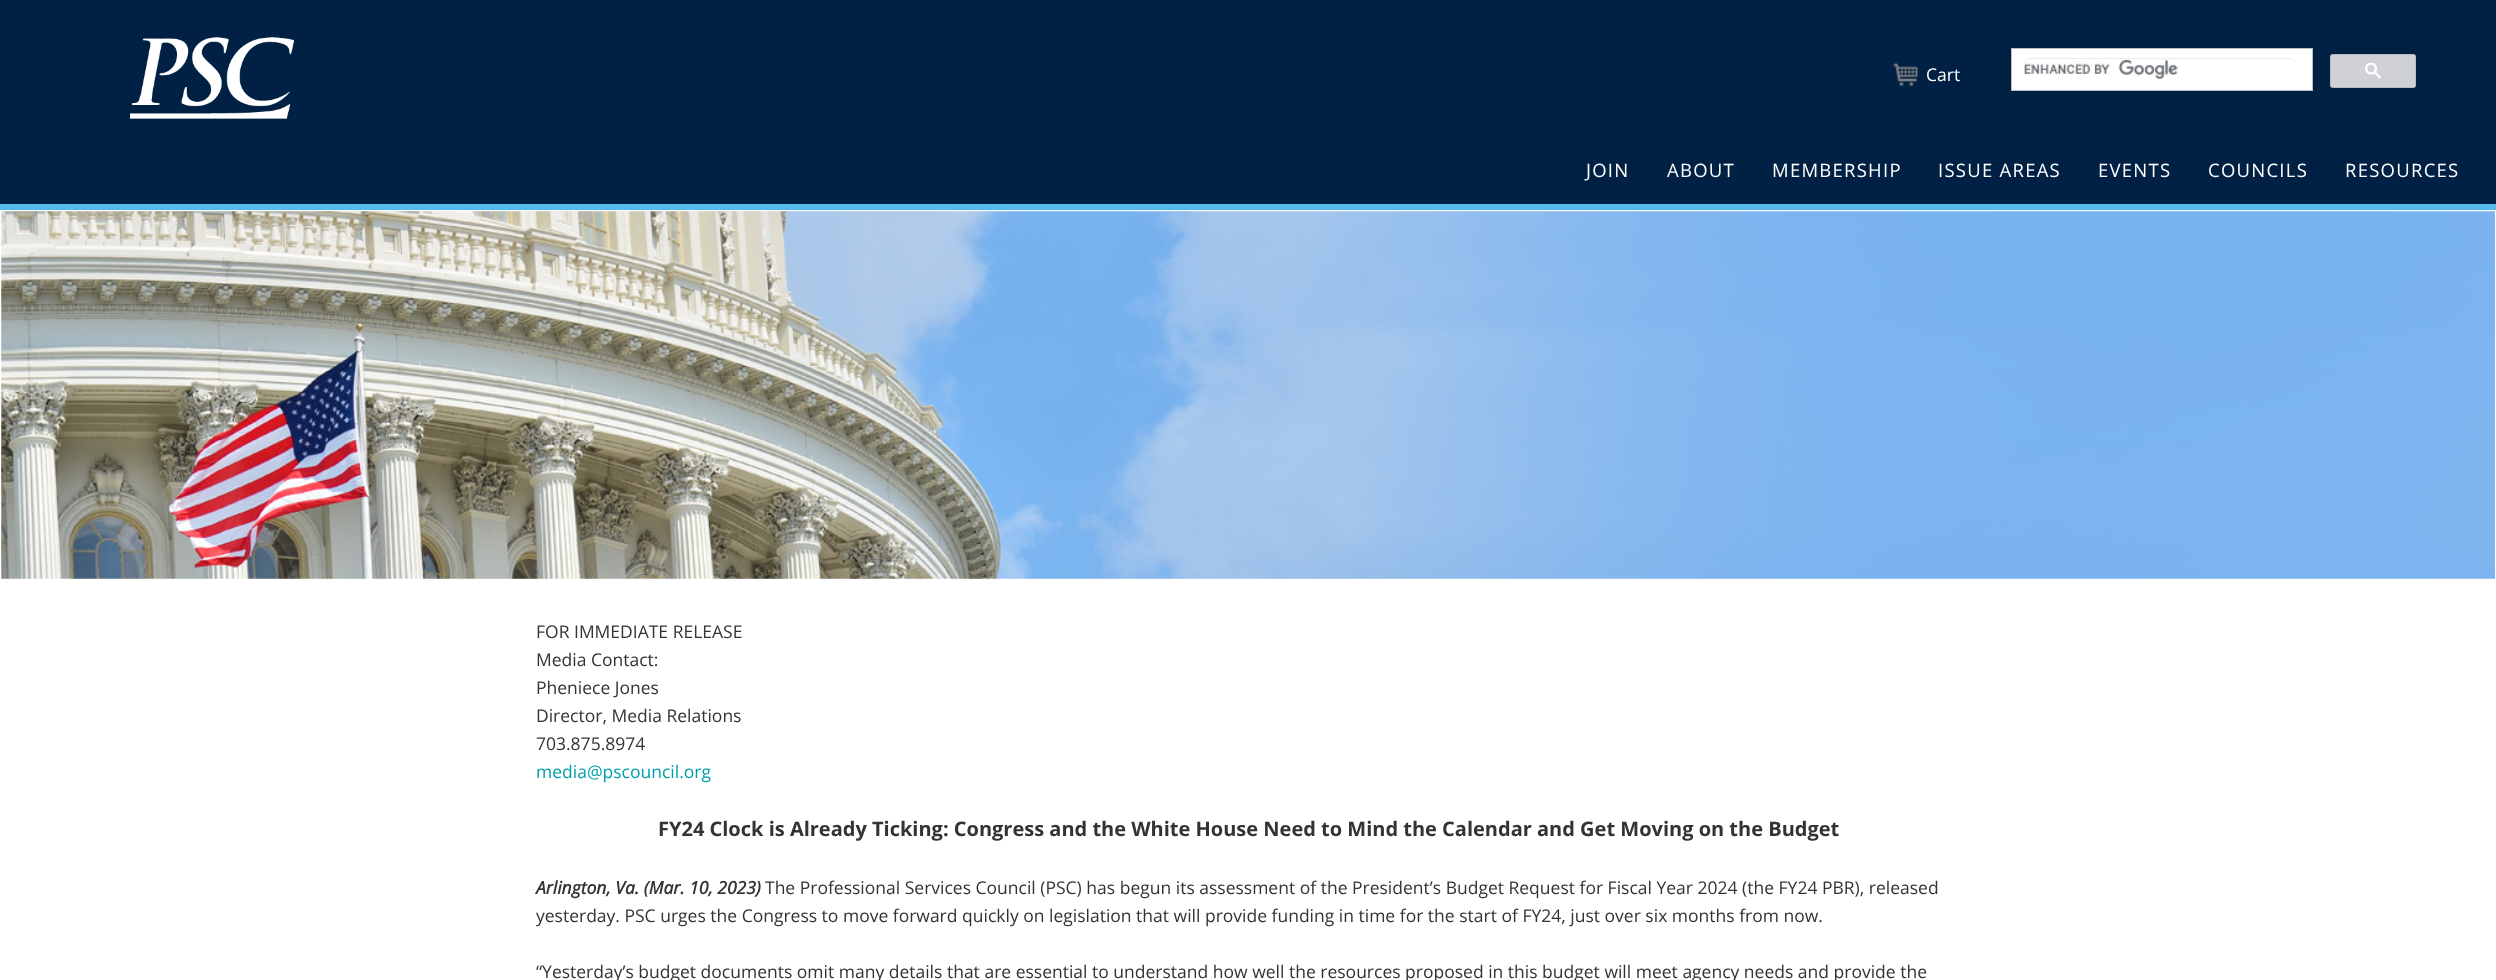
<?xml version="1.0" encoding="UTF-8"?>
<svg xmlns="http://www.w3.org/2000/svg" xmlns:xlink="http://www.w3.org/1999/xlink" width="2496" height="980">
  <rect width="100%" height="100%" fill="#ffffff" />
  <rect width="2496" height="204" fill="#002144" />
  <image x="130" y="37" width="164" height="82" xlink:href="image1.png" />
  <image x="1893" y="62" width="25" height="25" xlink:href="image2.png" />
  <rect x="2011.5" y="48.5" width="301" height="42" fill="#ffffff" stroke="#b6bec5" />
  <image x="2024" y="60" width="154" height="19" xlink:href="image3.png" />
  <path d="M 2030 59 h 259 c 3 0 6 3 6 6 v -1 c 0 -3 -3 -6 -6 -6 h -259 c -3 0 -6 3 -6 6 v 1 c 0 -3 3 -6 6 -6 z" fill="#ececec" />
  <rect x="2330.5" y="54.5" width="85" height="33" rx="2" fill="#d0d1d4" stroke="#b6bec5" />
  <image x="2365" y="63" width="16" height="16" xlink:href="image4.png" />
  <rect y="204" width="2496" height="6" fill="#54baed" />
  <image x="1" y="211" width="2494" height="368" xlink:href="image5.png" />
  <text x="1926" y="81" style="font-family: Open Sans; font-size: 17.5px; fill: #ffffff">Cart</text>
  <text x="1586" y="177" style="font-family: Open Sans; font-size: 18.5px; letter-spacing: 1.25px; fill: #ffffff">JOIN</text>
  <text x="1667" y="177" style="font-family: Open Sans; font-size: 18.5px; letter-spacing: 1.25px; fill: #ffffff">ABOUT</text>
  <text x="1772" y="177" style="font-family: Open Sans; font-size: 18.5px; letter-spacing: 1.25px; fill: #ffffff">MEMBERSHIP</text>
  <text x="1938" y="177" style="font-family: Open Sans; font-size: 18.5px; letter-spacing: 1.25px; fill: #ffffff">ISSUE AREAS</text>
  <text x="2098" y="177" style="font-family: Open Sans; font-size: 18.5px; letter-spacing: 1.25px; fill: #ffffff">EVENTS</text>
  <text x="2208" y="177" style="font-family: Open Sans; font-size: 18.5px; letter-spacing: 1.25px; fill: #ffffff">COUNCILS</text>
  <text x="2345" y="177" style="font-family: Open Sans; font-size: 18.5px; letter-spacing: 1.25px; fill: #ffffff">RESOURCES</text>
  <text x="536" y="638" style="font-family: Open Sans; font-size: 17.5px; fill: #333333">FOR IMMEDIATE RELEASE</text>
  <text x="536" y="666" style="font-family: Open Sans; font-size: 17.5px; fill: #333333">Media Contact:</text>
  <text x="536" y="694" style="font-family: Open Sans; font-size: 17.5px; fill: #333333">Pheniece Jones</text>
  <text x="536" y="722" style="font-family: Open Sans; font-size: 17.5px; fill: #333333">Director, Media Relations</text>
  <text x="536" y="750" style="font-family: Open Sans; font-size: 17.5px; fill: #333333">703.875.8974</text>
  <text x="536" y="778" style="font-family: Open Sans; font-size: 17.5px; fill: #009eaa">media@pscouncil.org</text>
  <text x="658" y="836" style="font-family: Open Sans; font-size: 20px; font-weight: bold; fill: #333333">FY24 Clock is Already Ticking: Congress and the White House Need to Mind the Calendar and Get Moving on the Budget</text>
  <text x="536" y="894" style="font-family: Open Sans; font-size: 17.5px; font-weight: bold; font-style: italic; fill: #333333">Arlington, Va. (Mar. 10, 2023)</text>
  <text x="765" y="894" style="font-family: Open Sans; font-size: 17.5px; fill: #333333">The Professional Services Council (PSC) has begun its assessment of the President’s Budget Request for Fiscal Year 2024 (the FY24 PBR), released</text>
  <text x="536" y="922" style="font-family: Open Sans; font-size: 17.5px; fill: #333333">yesterday. PSC urges the Congress to move forward quickly on legislation that will provide funding in time for the start of FY24, just over six months from now.</text>
  <text x="536" y="978" style="font-family: Open Sans; font-size: 17.5px; fill: #333333">“Yesterday’s budget documents omit many details that are essential to understand how well the resources proposed in this budget will meet agency needs and provide the</text>
</svg>
